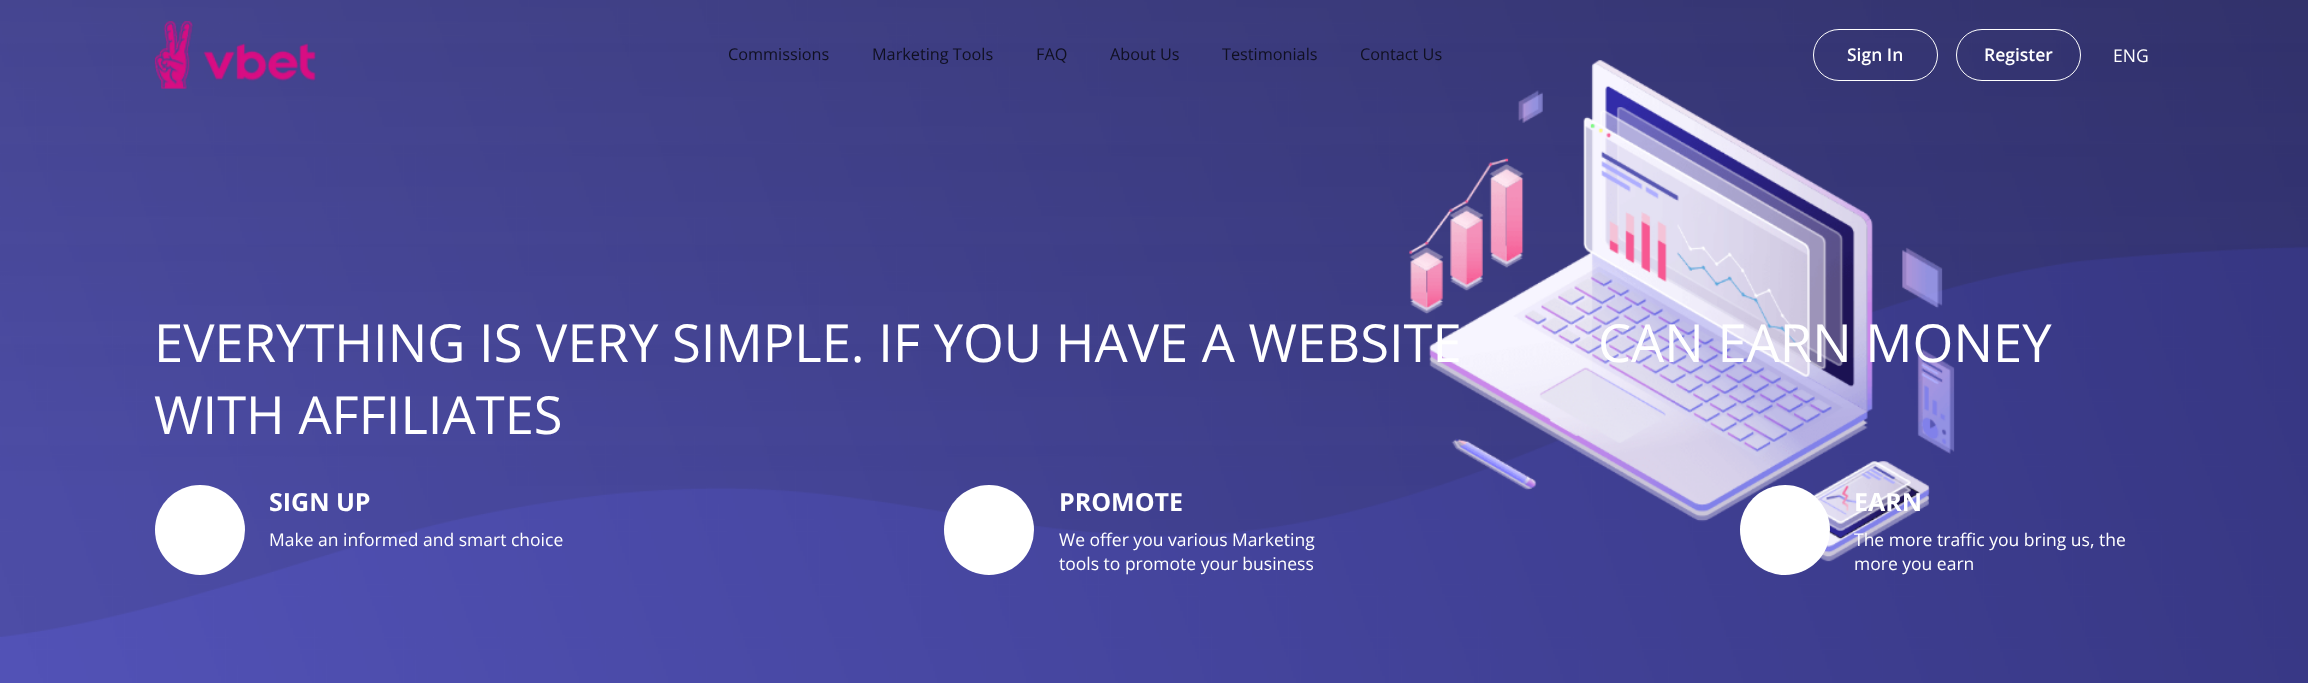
<?xml version="1.0" encoding="UTF-8"?>
<svg xmlns="http://www.w3.org/2000/svg" xmlns:xlink="http://www.w3.org/1999/xlink" width="2308" height="683">
  <rect width="100%" height="100%" fill="#ffffff" />
  <image x="0" y="0" width="2308" height="683" xlink:href="image2.png" />
  <image x="154" y="21" width="162" height="68" xlink:href="image1.png" />
  <rect x="1813.5" y="29.5" width="124" height="51" rx="25.5" fill="none" stroke="#ffffff" />
  <rect x="1956.5" y="29.5" width="124" height="51" rx="25.5" fill="none" stroke="#ffffff" />
  <circle cx="200" cy="530" r="45" fill="#ffffff" />
  <circle cx="989" cy="530" r="45" fill="#ffffff" />
  <circle cx="1785" cy="530" r="45" fill="#ffffff" />
  <text x="728" y="60" style="font-family: Open Sans; font-size: 16.25px; fill: #101021">Commissions</text>
  <text x="872" y="60" style="font-family: Open Sans; font-size: 16.25px; fill: #101021">Marketing Tools</text>
  <text x="1036" y="60" style="font-family: Open Sans; font-size: 16.25px; fill: #101021">FAQ</text>
  <text x="1110" y="60" style="font-family: Open Sans; font-size: 16.25px; fill: #101021">About Us</text>
  <text x="1222" y="60" style="font-family: Open Sans; font-size: 16.25px; fill: #101021">Testimonials</text>
  <text x="1360" y="60" style="font-family: Open Sans; font-size: 16.25px; fill: #101021">Contact Us</text>
  <text x="1847" y="61" style="font-family: Open Sans; font-size: 17.5px; font-weight: 600; fill: #ffffff">Sign In</text>
  <text x="1984" y="61" style="font-family: Open Sans; font-size: 17.5px; font-weight: 600; fill: #ffffff">Register</text>
  <text x="2113" y="62" style="font-family: Open Sans; font-size: 17.5px; fill: #ffffff">ENG</text>
  <text x="154" y="362" style="font-family: Open Sans; font-size: 52.5px; fill: #ffffff">EVERYTHING IS VERY SIMPLE. IF YOU HAVE A WEBSITE</text>
  <text x="1598" y="362" style="font-family: Open Sans; font-size: 52.5px; fill: #ffffff">CAN EARN MONEY</text>
  <text x="154" y="434" style="font-family: Open Sans; font-size: 52.5px; fill: #ffffff">WITH AFFILIATES</text>
  <text x="269" y="511" style="font-family: Open Sans; font-size: 25px; font-weight: bold; fill: #ffffff">SIGN UP</text>
  <text x="269" y="546" style="font-family: Open Sans; font-size: 17.5px; fill: #ffffff">Make an informed and smart choice</text>
  <text x="1059" y="511" style="font-family: Open Sans; font-size: 25px; font-weight: bold; fill: #ffffff">PROMOTE</text>
  <text x="1059" y="546" style="font-family: Open Sans; font-size: 17.5px; fill: #ffffff">We offer you various Marketing</text>
  <text x="1059" y="570" style="font-family: Open Sans; font-size: 17.5px; fill: #ffffff">tools to promote your business</text>
  <text x="1854" y="511" style="font-family: Open Sans; font-size: 25px; font-weight: bold; fill: #ffffff">EARN</text>
  <text x="1854" y="546" style="font-family: Open Sans; font-size: 17.5px; fill: #ffffff">The more traffic you bring us, the</text>
  <text x="1854" y="570" style="font-family: Open Sans; font-size: 17.5px; fill: #ffffff">more you earn</text>
</svg>
